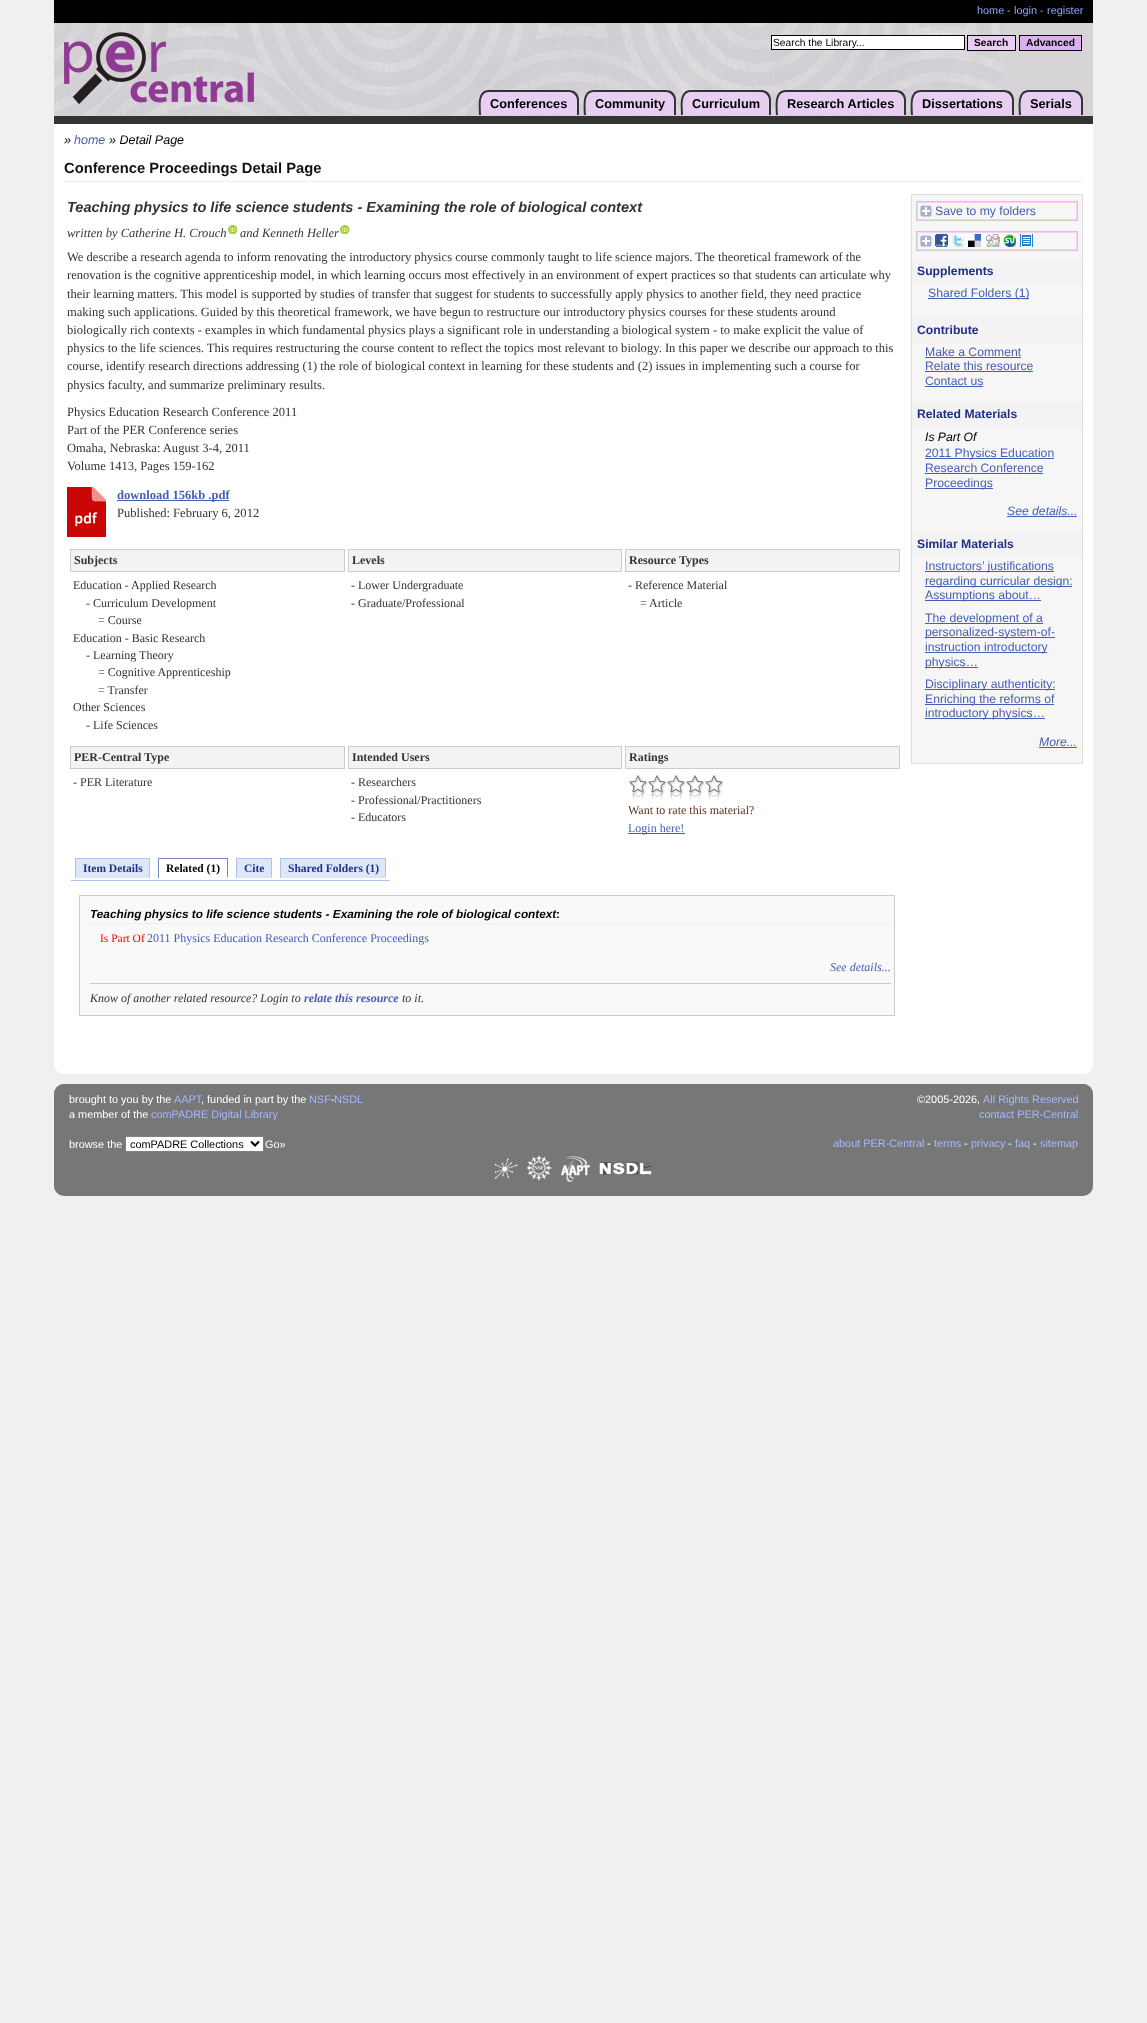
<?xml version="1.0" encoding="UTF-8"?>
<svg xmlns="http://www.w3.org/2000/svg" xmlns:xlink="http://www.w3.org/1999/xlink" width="1147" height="2023">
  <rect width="100%" height="100%" fill="#f0f0f0" />
  <path d="M 54 0 h 1039 v 1064 c 0 5.5 -4.5 10 -10 10 h -1019 c -5.5 0 -10 -4.5 -10 -10 z" fill="#ffffff" />
  <rect x="54" width="1039" height="23" fill="#000000" />
  <rect x="1004" y="23" width="89" height="93" fill="#d7d4d8" />
  <image x="54" y="23" width="950" height="93" xlink:href="image1.png" />
  <rect x="54" y="116" width="1039" height="8" fill="#333333" />
  <image x="64" y="32" width="190" height="72" xlink:href="image2.png" />
  <rect x="771.5" y="35.5" width="193" height="14" fill="#ffffff" stroke="#000000" />
  <rect x="967.5" y="35.5" width="48" height="15" fill="#e7cef2" stroke="#000000" />
  <rect x="1019.5" y="35.5" width="62" height="15" fill="#dbaff2" stroke="#000000" />
  <path d="M 489 90 h 80 c 5.5 0 10 4.5 10 10 v 15 h -100 v -15 c 0 -5.5 4.5 -10 10 -10 z" fill="#e7cef2" />
  <path d="M 489 90 h 80 c 6 0 10 4 10 10 v 15 h -100 c 0 -8 -3 -25 10 -25 z m 0 2 h 80 c 4 0 8 4 8 8 v 15 h -96 c 0 -7 -3 -23 8 -23 z" fill="#333333" fill-rule="evenodd" />
  <path d="M 594 90 h 72 c 5.5 0 10 4.5 10 10 v 15 h -92 v -15 c 0 -5.5 4.5 -10 10 -10 z" fill="#e7cef2" />
  <path d="M 594 90 h 72 c 6 0 10 4 10 10 v 15 h -92 c 0 -8 -3 -25 10 -25 z m 0 2 h 72 c 4 0 8 4 8 8 v 15 h -88 c 0 -7 -3 -23 8 -23 z" fill="#333333" fill-rule="evenodd" />
  <path d="M 691 90 h 70 c 5.5 0 10 4.5 10 10 v 15 h -90 v -15 c 0 -5.5 4.5 -10 10 -10 z" fill="#e7cef2" />
  <path d="M 691 90 h 70 c 6 0 10 4 10 10 v 15 h -90 c 0 -8 -3 -25 10 -25 z m 0 2 h 70 c 4 0 8 4 8 8 v 15 h -86 c 0 -7 -3 -23 8 -23 z" fill="#333333" fill-rule="evenodd" />
  <path d="M 786 90 h 110 c 5.5 0 10 4.5 10 10 v 15 h -130 v -15 c 0 -5.5 4.5 -10 10 -10 z" fill="#e7cef2" />
  <path d="M 786 90 h 110 c 6 0 10 4 10 10 v 15 h -130 c 0 -8 -3 -25 10 -25 z m 0 2 h 110 c 4 0 8 4 8 8 v 15 h -126 c 0 -7 -3 -23 8 -23 z" fill="#333333" fill-rule="evenodd" />
  <path d="M 921 90 h 83 c 5.5 0 10 4.5 10 10 v 15 h -103 v -15 c 0 -5.5 4.5 -10 10 -10 z" fill="#e7cef2" />
  <path d="M 921 90 h 83 c 6 0 10 4 10 10 v 15 h -103 c 0 -8 -3 -25 10 -25 z m 0 2 h 83 c 4 0 8 4 8 8 v 15 h -99 c 0 -7 -3 -23 8 -23 z" fill="#333333" fill-rule="evenodd" />
  <path d="M 1029 90 h 44 c 5.5 0 10 4.5 10 10 v 15 h -64 v -15 c 0 -5.5 4.5 -10 10 -10 z" fill="#e7cef2" />
  <path d="M 1029 90 h 44 c 6 0 10 4 10 10 v 15 h -64 c 0 -8 -3 -25 10 -25 z m 0 2 h 44 c 4 0 8 4 8 8 v 15 h -60 c 0 -7 -3 -23 8 -23 z" fill="#333333" fill-rule="evenodd" />
  <rect x="64" y="181" width="1019" height="1" fill="#eeeeee" />
  <image x="228" y="225" width="9" height="9" xlink:href="image3.png" />
  <image x="340" y="225" width="10" height="9" xlink:href="image4.png" />
  <image x="67" y="487" width="39" height="50" xlink:href="image5.png" />
  <rect x="117" y="500" width="112" height="1" fill="#465db3" />
  <rect x="70.5" y="549.5" width="274" height="22" fill="#f3f3f3" stroke="#cccccc" />
  <rect x="348.5" y="549.5" width="273" height="22" fill="#f3f3f3" stroke="#cccccc" />
  <rect x="625.5" y="549.5" width="274" height="22" fill="#f3f3f3" stroke="#cccccc" />
  <rect x="70.5" y="746.5" width="274" height="22" fill="#f3f3f3" stroke="#cccccc" />
  <rect x="348.5" y="746.5" width="273" height="22" fill="#f3f3f3" stroke="#cccccc" />
  <rect x="625.5" y="746.5" width="274" height="22" fill="#f3f3f3" stroke="#cccccc" />
  <image x="629" y="775" width="94" height="24" xlink:href="image6.png" />
  <rect x="628" y="833" width="57" height="1" fill="#465db3" />
  <rect x="71" y="880" width="319" height="1" fill="#afc3ed" />
  <rect x="76" y="859" width="73" height="18" fill="#dde7f9" />
  <rect x="75" y="858" width="75" height="1" fill="#afc3ed" />
  <rect x="149" y="858" width="1" height="20" fill="#afc3ed" />
  <rect x="75" y="877" width="75" height="1" fill="#dae4f7" />
  <rect x="75" y="858" width="1" height="20" fill="#afc3ed" />
  <rect x="158" y="858" width="70" height="1" fill="#7289b7" />
  <rect x="227" y="858" width="1" height="20" fill="#7289b7" />
  <rect x="227" y="877" width="1" height="1" fill="#ffffff" />
  <rect x="158" y="858" width="1" height="20" fill="#7289b7" />
  <rect x="237" y="859" width="34" height="18" fill="#dde7f9" />
  <rect x="236" y="858" width="36" height="1" fill="#afc3ed" />
  <rect x="271" y="858" width="1" height="20" fill="#afc3ed" />
  <rect x="236" y="877" width="36" height="1" fill="#dae4f7" />
  <rect x="236" y="858" width="1" height="20" fill="#afc3ed" />
  <rect x="281" y="859" width="104" height="18" fill="#dde7f9" />
  <rect x="280" y="858" width="106" height="1" fill="#afc3ed" />
  <rect x="385" y="858" width="1" height="20" fill="#afc3ed" />
  <rect x="280" y="877" width="106" height="1" fill="#dae4f7" />
  <rect x="280" y="858" width="1" height="20" fill="#afc3ed" />
  <rect x="79.5" y="895.5" width="815" height="120" fill="#f9f9f9" stroke="#cccccc" />
  <rect x="90" y="923" width="801" height="1" fill="#eeeeee" />
  <rect x="90" y="983" width="801" height="1" fill="#cccccc" />
  <rect x="911.5" y="194.5" width="171" height="569" fill="#f6f6f6" stroke="#dddddd" />
  <rect x="917.5" y="202.5" width="159" height="17" fill="none" stroke="#ffccff" />
  <image x="920" y="205" width="12" height="12" xlink:href="image7.png" />
  <rect x="916.5" y="201.5" width="161" height="19" fill="none" stroke="#cccccc" />
  <rect x="917.5" y="232.5" width="159" height="17" fill="none" stroke="#ffccff" />
  <image x="920" y="235" width="12" height="12" xlink:href="image7.png" />
  <image x="935" y="234" width="98" height="13" xlink:href="image8.png" />
  <rect x="916.5" y="231.5" width="161" height="19" fill="none" stroke="#cccccc" />
  <rect x="912" y="259" width="170" height="24" fill="#f3f3f3" />
  <rect x="928" y="298" width="101" height="1" fill="#465db3" />
  <rect x="912" y="318" width="170" height="25" fill="#f3f3f3" />
  <rect x="925" y="357" width="96" height="1" fill="#465db3" />
  <rect x="925" y="371" width="108" height="1" fill="#465db3" />
  <rect x="925" y="386" width="58" height="1" fill="#465db3" />
  <rect x="912" y="402" width="170" height="25" fill="#f3f3f3" />
  <rect x="925" y="458" width="129" height="1" fill="#465db3" />
  <rect x="925" y="473" width="118" height="1" fill="#465db3" />
  <rect x="925" y="488" width="68" height="1" fill="#465db3" />
  <rect x="1007" y="516" width="70" height="1" fill="#465db3" />
  <rect x="912" y="532" width="170" height="25" fill="#f3f3f3" />
  <rect x="925" y="571" width="129" height="1" fill="#465db3" />
  <rect x="925" y="586" width="147" height="1" fill="#465db3" />
  <rect x="925" y="600" width="116" height="1" fill="#465db3" />
  <rect x="925" y="623" width="118" height="1" fill="#465db3" />
  <rect x="925" y="637" width="130" height="1" fill="#465db3" />
  <rect x="925" y="652" width="122" height="1" fill="#465db3" />
  <rect x="925" y="667" width="53" height="1" fill="#465db3" />
  <rect x="925" y="689" width="130" height="1" fill="#465db3" />
  <rect x="925" y="704" width="129" height="1" fill="#465db3" />
  <rect x="925" y="718" width="120" height="1" fill="#465db3" />
  <rect x="1039" y="747" width="38" height="1" fill="#465db3" />
  <rect x="54" y="1084" width="1039" height="112" rx="10" fill="#777777" />
  <rect x="54" y="1084" width="1039" height="47" rx="10" fill="#777777" />
  <rect x="125.5" y="1136.5" width="138" height="15" fill="#ffffff" stroke="#808080" />
  <path d="M 251 1141.5 l 4 4 l 4 -4" fill="none" stroke="#000000" stroke-width="2" />
  <image x="495" y="1158" width="23" height="21" xlink:href="image9.png" />
  <image x="527" y="1156" width="25" height="25" xlink:href="image10.png" />
  <image x="561" y="1156" width="29" height="26" xlink:href="image11.png" />
  <image x="599" y="1162" width="53" height="13" xlink:href="image12.png" />
  <text x="977" y="14" style="font-family: Liberation Sans; font-size: 10.9px; fill: #8ca5ff">home</text>
  <text x="1007" y="14" style="font-family: Liberation Sans; font-size: 10.9px; fill: #a8a8a8">-</text>
  <text x="1014" y="14" style="font-family: Liberation Sans; font-size: 10.9px; fill: #8ca5ff">login</text>
  <text x="1040" y="14" style="font-family: Liberation Sans; font-size: 10.9px; fill: #a8a8a8">-</text>
  <text x="1047" y="14" style="font-family: Liberation Sans; font-size: 10.9px; fill: #8ca5ff">register</text>
  <text x="773" y="46" style="font-family: Liberation Sans; font-size: 10.25px; fill: #000000">Search the Library...</text>
  <text x="974" y="46" style="font-family: Liberation Sans; font-size: 10.25px; font-weight: bold; fill: #000000">Search</text>
  <text x="1026" y="46" style="font-family: Liberation Sans; font-size: 10.25px; font-weight: bold; fill: #000000">Advanced</text>
  <text x="490" y="108" style="font-family: Liberation Sans; font-size: 12.75px; font-weight: bold; fill: #000000">Conferences</text>
  <text x="595" y="108" style="font-family: Liberation Sans; font-size: 12.75px; font-weight: bold; fill: #000000">Community</text>
  <text x="692" y="108" style="font-family: Liberation Sans; font-size: 12.75px; font-weight: bold; fill: #000000">Curriculum</text>
  <text x="787" y="108" style="font-family: Liberation Sans; font-size: 12.75px; font-weight: bold; fill: #000000">Research Articles</text>
  <text x="922" y="108" style="font-family: Liberation Sans; font-size: 12.75px; font-weight: bold; fill: #000000">Dissertations</text>
  <text x="1030" y="108" style="font-family: Liberation Sans; font-size: 12.75px; font-weight: bold; fill: #000000">Serials</text>
  <text x="64" y="144" style="font-family: Liberation Sans; font-size: 12.5px; font-style: italic; fill: #000000">»</text>
  <text x="74" y="144" style="font-family: Liberation Sans; font-size: 12.5px; font-style: italic; fill: #465db3">home</text>
  <text x="109" y="144" style="font-family: Liberation Sans; font-size: 12.5px; font-style: italic; fill: #000000">» Detail Page</text>
  <text x="64" y="173" style="font-family: Liberation Sans; font-size: 14.75px; font-weight: bold; fill: #111111">Conference Proceedings Detail Page</text>
  <text x="67" y="212" style="font-family: Liberation Sans; font-size: 14.55px; font-weight: bold; font-style: italic; fill: #333333">Teaching physics to life science students - Examining the role of biological context</text>
  <text x="67" y="237" style="font-family: Liberation Serif; font-size: 12.55px; font-style: italic; fill: #333333">written by Catherine H. Crouch</text>
  <text x="240" y="237" style="font-family: Liberation Serif; font-size: 12.55px; font-style: italic; fill: #333333">and Kenneth Heller</text>
  <text x="67" y="261" style="font-family: Liberation Serif; font-size: 12.55px; fill: #333333">We describe a research agenda to inform renovating the introductory physics course commonly taught to life science majors. The theoretical framework of the</text>
  <text x="67" y="279" style="font-family: Liberation Serif; font-size: 12.55px; fill: #333333">renovation is the cognitive apprenticeship model, in which learning occurs most effectively in an environment of expert practices so that students can articulate why</text>
  <text x="67" y="298" style="font-family: Liberation Serif; font-size: 12.55px; fill: #333333">their learning matters. This model is supported by studies of transfer that suggest for students to successfully apply physics to another field, they need practice</text>
  <text x="67" y="316" style="font-family: Liberation Serif; font-size: 12.55px; fill: #333333">making such applications. Guided by this theoretical framework, we have begun to restructure our introductory physics courses for these students around</text>
  <text x="67" y="334" style="font-family: Liberation Serif; font-size: 12.55px; fill: #333333">biologically rich contexts - examples in which fundamental physics plays a significant role in understanding a biological system - to make explicit the value of</text>
  <text x="67" y="352" style="font-family: Liberation Serif; font-size: 12.55px; fill: #333333">physics to the life sciences. This requires restructuring the course content to reflect the topics most relevant to biology. In this paper we describe our approach to this</text>
  <text x="67" y="370" style="font-family: Liberation Serif; font-size: 12.55px; fill: #333333">course, identify research directions addressing (1) the role of biological context in learning for these students and (2) issues in implementing such a course for</text>
  <text x="67" y="389" style="font-family: Liberation Serif; font-size: 12.55px; fill: #333333">physics faculty, and summarize preliminary results.</text>
  <text x="67" y="416" style="font-family: Liberation Serif; font-size: 12.55px; fill: #333333">Physics Education Research Conference 2011</text>
  <text x="67" y="434" style="font-family: Liberation Serif; font-size: 12.55px; fill: #333333">Part of the PER Conference series</text>
  <text x="67" y="452" style="font-family: Liberation Serif; font-size: 12.55px; fill: #333333">Omaha, Nebraska: August 3-4, 2011</text>
  <text x="67" y="470" style="font-family: Liberation Serif; font-size: 12.55px; fill: #333333">Volume 1413, Pages 159-162</text>
  <text x="117" y="499" style="font-family: Liberation Serif; font-size: 12.55px; font-weight: bold; fill: #465db3">download 156kb .pdf</text>
  <text x="117" y="517" style="font-family: Liberation Serif; font-size: 12.55px; fill: #333333">Published: February 6, 2012</text>
  <text x="74" y="564" style="font-family: Liberation Serif; font-size: 12px; font-weight: bold; fill: #333333">Subjects</text>
  <text x="352" y="564" style="font-family: Liberation Serif; font-size: 12px; font-weight: bold; fill: #333333">Levels</text>
  <text x="629" y="564" style="font-family: Liberation Serif; font-size: 12px; font-weight: bold; fill: #333333">Resource Types</text>
  <text x="73" y="589" style="font-family: Liberation Serif; font-size: 12px; fill: #333333">Education - Applied Research</text>
  <text x="86" y="607" style="font-family: Liberation Serif; font-size: 12px; fill: #333333">- Curriculum Development</text>
  <text x="98" y="624" style="font-family: Liberation Serif; font-size: 12px; fill: #333333">= Course</text>
  <text x="73" y="642" style="font-family: Liberation Serif; font-size: 12px; fill: #333333">Education - Basic Research</text>
  <text x="86" y="659" style="font-family: Liberation Serif; font-size: 12px; fill: #333333">- Learning Theory</text>
  <text x="98" y="676" style="font-family: Liberation Serif; font-size: 12px; fill: #333333">= Cognitive Apprenticeship</text>
  <text x="98" y="694" style="font-family: Liberation Serif; font-size: 12px; fill: #333333">= Transfer</text>
  <text x="73" y="711" style="font-family: Liberation Serif; font-size: 12px; fill: #333333">Other Sciences</text>
  <text x="86" y="729" style="font-family: Liberation Serif; font-size: 12px; fill: #333333">- Life Sciences</text>
  <text x="351" y="589" style="font-family: Liberation Serif; font-size: 12px; fill: #333333">- Lower Undergraduate</text>
  <text x="351" y="607" style="font-family: Liberation Serif; font-size: 12px; fill: #333333">- Graduate/Professional</text>
  <text x="628" y="589" style="font-family: Liberation Serif; font-size: 12px; fill: #333333">- Reference Material</text>
  <text x="640" y="607" style="font-family: Liberation Serif; font-size: 12px; fill: #333333">= Article</text>
  <text x="74" y="761" style="font-family: Liberation Serif; font-size: 12px; font-weight: bold; fill: #333333">PER-Central Type</text>
  <text x="352" y="761" style="font-family: Liberation Serif; font-size: 12px; font-weight: bold; fill: #333333">Intended Users</text>
  <text x="629" y="761" style="font-family: Liberation Serif; font-size: 12px; font-weight: bold; fill: #333333">Ratings</text>
  <text x="73" y="786" style="font-family: Liberation Serif; font-size: 12px; fill: #333333">- PER Literature</text>
  <text x="351" y="786" style="font-family: Liberation Serif; font-size: 12px; fill: #333333">- Researchers</text>
  <text x="351" y="804" style="font-family: Liberation Serif; font-size: 12px; fill: #333333">- Professional/Practitioners</text>
  <text x="351" y="821" style="font-family: Liberation Serif; font-size: 12px; fill: #333333">- Educators</text>
  <text x="628" y="814" style="font-family: Liberation Serif; font-size: 12px; fill: #5d3126">Want to rate this material?</text>
  <text x="628" y="832" style="font-family: Liberation Serif; font-size: 12px; fill: #465db3">Login here!</text>
  <text x="83" y="872" style="font-family: Liberation Serif; font-size: 11.5px; font-weight: bold; fill: #212f86">Item Details</text>
  <text x="166" y="872" style="font-family: Liberation Serif; font-size: 11.5px; font-weight: bold; fill: #000000">Related (1)</text>
  <text x="244" y="872" style="font-family: Liberation Serif; font-size: 11.5px; font-weight: bold; fill: #212f86">Cite</text>
  <text x="288" y="872" style="font-family: Liberation Serif; font-size: 11.5px; font-weight: bold; fill: #212f86">Shared Folders (1)</text>
  <text x="90" y="918" style="font-family: Liberation Sans; font-size: 11.8px; font-weight: bold; font-style: italic; fill: #000000">Teaching physics to life science students - Examining the role of biological context</text>
  <text x="556" y="918" style="font-family: Liberation Sans; font-size: 11.8px; font-weight: bold; fill: #000000">:</text>
  <text x="100" y="942" style="font-family: Liberation Serif; font-size: 11.5px; fill: #ff0000">Is Part Of</text>
  <text x="147" y="942" style="font-family: Liberation Serif; font-size: 12px; fill: #465db3">2011 Physics Education Research Conference Proceedings</text>
  <text x="830" y="971" style="font-family: Liberation Serif; font-size: 12px; font-style: italic; fill: #465db3">See details...</text>
  <text x="90" y="1002" style="font-family: Liberation Serif; font-size: 12px; font-style: italic; fill: #333333">Know of another related resource? Login to</text>
  <text x="304" y="1002" style="font-family: Liberation Serif; font-size: 12px; font-weight: bold; font-style: italic; fill: #465db3">relate this resource</text>
  <text x="402" y="1002" style="font-family: Liberation Serif; font-size: 12px; font-style: italic; fill: #333333">to it.</text>
  <text x="935" y="215" style="font-family: Liberation Sans; font-size: 12.2px; fill: #465db3">Save to my folders</text>
  <text x="917" y="275" style="font-family: Liberation Sans; font-size: 12.2px; font-weight: bold; fill: #212f86">Supplements</text>
  <text x="928" y="297" style="font-family: Liberation Sans; font-size: 12.2px; fill: #465db3">Shared Folders (1)</text>
  <text x="917" y="334" style="font-family: Liberation Sans; font-size: 12.2px; font-weight: bold; fill: #212f86">Contribute</text>
  <text x="925" y="356" style="font-family: Liberation Sans; font-size: 12.2px; fill: #465db3">Make a Comment</text>
  <text x="925" y="370" style="font-family: Liberation Sans; font-size: 12.2px; fill: #465db3">Relate this resource</text>
  <text x="925" y="385" style="font-family: Liberation Sans; font-size: 12.2px; fill: #465db3">Contact us</text>
  <text x="917" y="418" style="font-family: Liberation Sans; font-size: 12.2px; font-weight: bold; fill: #212f86">Related Materials</text>
  <text x="925" y="441" style="font-family: Liberation Sans; font-size: 12.2px; font-style: italic; fill: #000000">Is Part Of</text>
  <text x="925" y="457" style="font-family: Liberation Sans; font-size: 12.2px; fill: #465db3">2011 Physics Education</text>
  <text x="925" y="472" style="font-family: Liberation Sans; font-size: 12.2px; fill: #465db3">Research Conference</text>
  <text x="925" y="487" style="font-family: Liberation Sans; font-size: 12.2px; fill: #465db3">Proceedings</text>
  <text x="1007" y="515" style="font-family: Liberation Sans; font-size: 12.2px; font-style: italic; fill: #465db3">See details...</text>
  <text x="917" y="548" style="font-family: Liberation Sans; font-size: 12.2px; font-weight: bold; fill: #212f86">Similar Materials</text>
  <text x="925" y="570" style="font-family: Liberation Sans; font-size: 12.2px; fill: #465db3">Instructors’ justifications</text>
  <text x="925" y="585" style="font-family: Liberation Sans; font-size: 12.2px; fill: #465db3">regarding curricular design:</text>
  <text x="925" y="599" style="font-family: Liberation Sans; font-size: 12.2px; fill: #465db3">Assumptions about…</text>
  <text x="925" y="622" style="font-family: Liberation Sans; font-size: 12.2px; fill: #465db3">The development of a</text>
  <text x="925" y="636" style="font-family: Liberation Sans; font-size: 12.2px; fill: #465db3">personalized-system-of-</text>
  <text x="925" y="651" style="font-family: Liberation Sans; font-size: 12.2px; fill: #465db3">instruction introductory</text>
  <text x="925" y="666" style="font-family: Liberation Sans; font-size: 12.2px; fill: #465db3">physics…</text>
  <text x="925" y="688" style="font-family: Liberation Sans; font-size: 12.2px; fill: #465db3">Disciplinary authenticity:</text>
  <text x="925" y="703" style="font-family: Liberation Sans; font-size: 12.2px; fill: #465db3">Enriching the reforms of</text>
  <text x="925" y="717" style="font-family: Liberation Sans; font-size: 12.2px; fill: #465db3">introductory physics…</text>
  <text x="1039" y="746" style="font-family: Liberation Sans; font-size: 12.2px; font-style: italic; fill: #465db3">More...</text>
  <text x="69" y="1103" style="font-family: Liberation Sans; font-size: 10.9px; fill: #ffffff">brought to you by the</text>
  <text x="174" y="1103" style="font-family: Liberation Sans; font-size: 10.9px; fill: #a6b9ff">AAPT</text>
  <text x="201" y="1103" style="font-family: Liberation Sans; font-size: 10.9px; fill: #ffffff">, funded in part by the</text>
  <text x="309" y="1103" style="font-family: Liberation Sans; font-size: 10.9px; fill: #a6b9ff">NSF</text>
  <text x="331" y="1103" style="font-family: Liberation Sans; font-size: 10.9px; fill: #ffffff">-</text>
  <text x="334" y="1103" style="font-family: Liberation Sans; font-size: 10.9px; fill: #a6b9ff">NSDL</text>
  <text x="69" y="1118" style="font-family: Liberation Sans; font-size: 10.9px; fill: #ffffff">a member of the</text>
  <text x="151" y="1118" style="font-family: Liberation Sans; font-size: 10.9px; fill: #a6b9ff">comPADRE Digital Library</text>
  <text x="917" y="1103" style="font-family: Liberation Sans; font-size: 10.9px; fill: #ffffff">©2005-2026,</text>
  <text x="983" y="1103" style="font-family: Liberation Sans; font-size: 10.9px; fill: #a6b9ff">All Rights Reserved</text>
  <text x="979" y="1118" style="font-family: Liberation Sans; font-size: 10.9px; fill: #a6b9ff">contact PER-Central</text>
  <text x="69" y="1148" style="font-family: Liberation Sans; font-size: 10.9px; fill: #ffffff">browse the</text>
  <text x="130" y="1148" style="font-family: Liberation Sans; font-size: 10.9px; fill: #000000">comPADRE Collections</text>
  <text x="265" y="1148" style="font-family: Liberation Sans; font-size: 10.9px; fill: #ffffff">Go»</text>
  <text x="833" y="1147" style="font-family: Liberation Sans; font-size: 10.9px; fill: #a6b9ff">about PER-Central</text>
  <text x="927" y="1147" style="font-family: Liberation Sans; font-size: 10.9px; fill: #ffffff">-</text>
  <text x="934" y="1147" style="font-family: Liberation Sans; font-size: 10.9px; fill: #a6b9ff">terms</text>
  <text x="964" y="1147" style="font-family: Liberation Sans; font-size: 10.9px; fill: #ffffff">-</text>
  <text x="971" y="1147" style="font-family: Liberation Sans; font-size: 10.9px; fill: #a6b9ff">privacy</text>
  <text x="1008" y="1147" style="font-family: Liberation Sans; font-size: 10.9px; fill: #ffffff">-</text>
  <text x="1015" y="1147" style="font-family: Liberation Sans; font-size: 10.9px; fill: #a6b9ff">faq</text>
  <text x="1033" y="1147" style="font-family: Liberation Sans; font-size: 10.9px; fill: #ffffff">-</text>
  <text x="1040" y="1147" style="font-family: Liberation Sans; font-size: 10.9px; fill: #a6b9ff">sitemap</text>
</svg>
